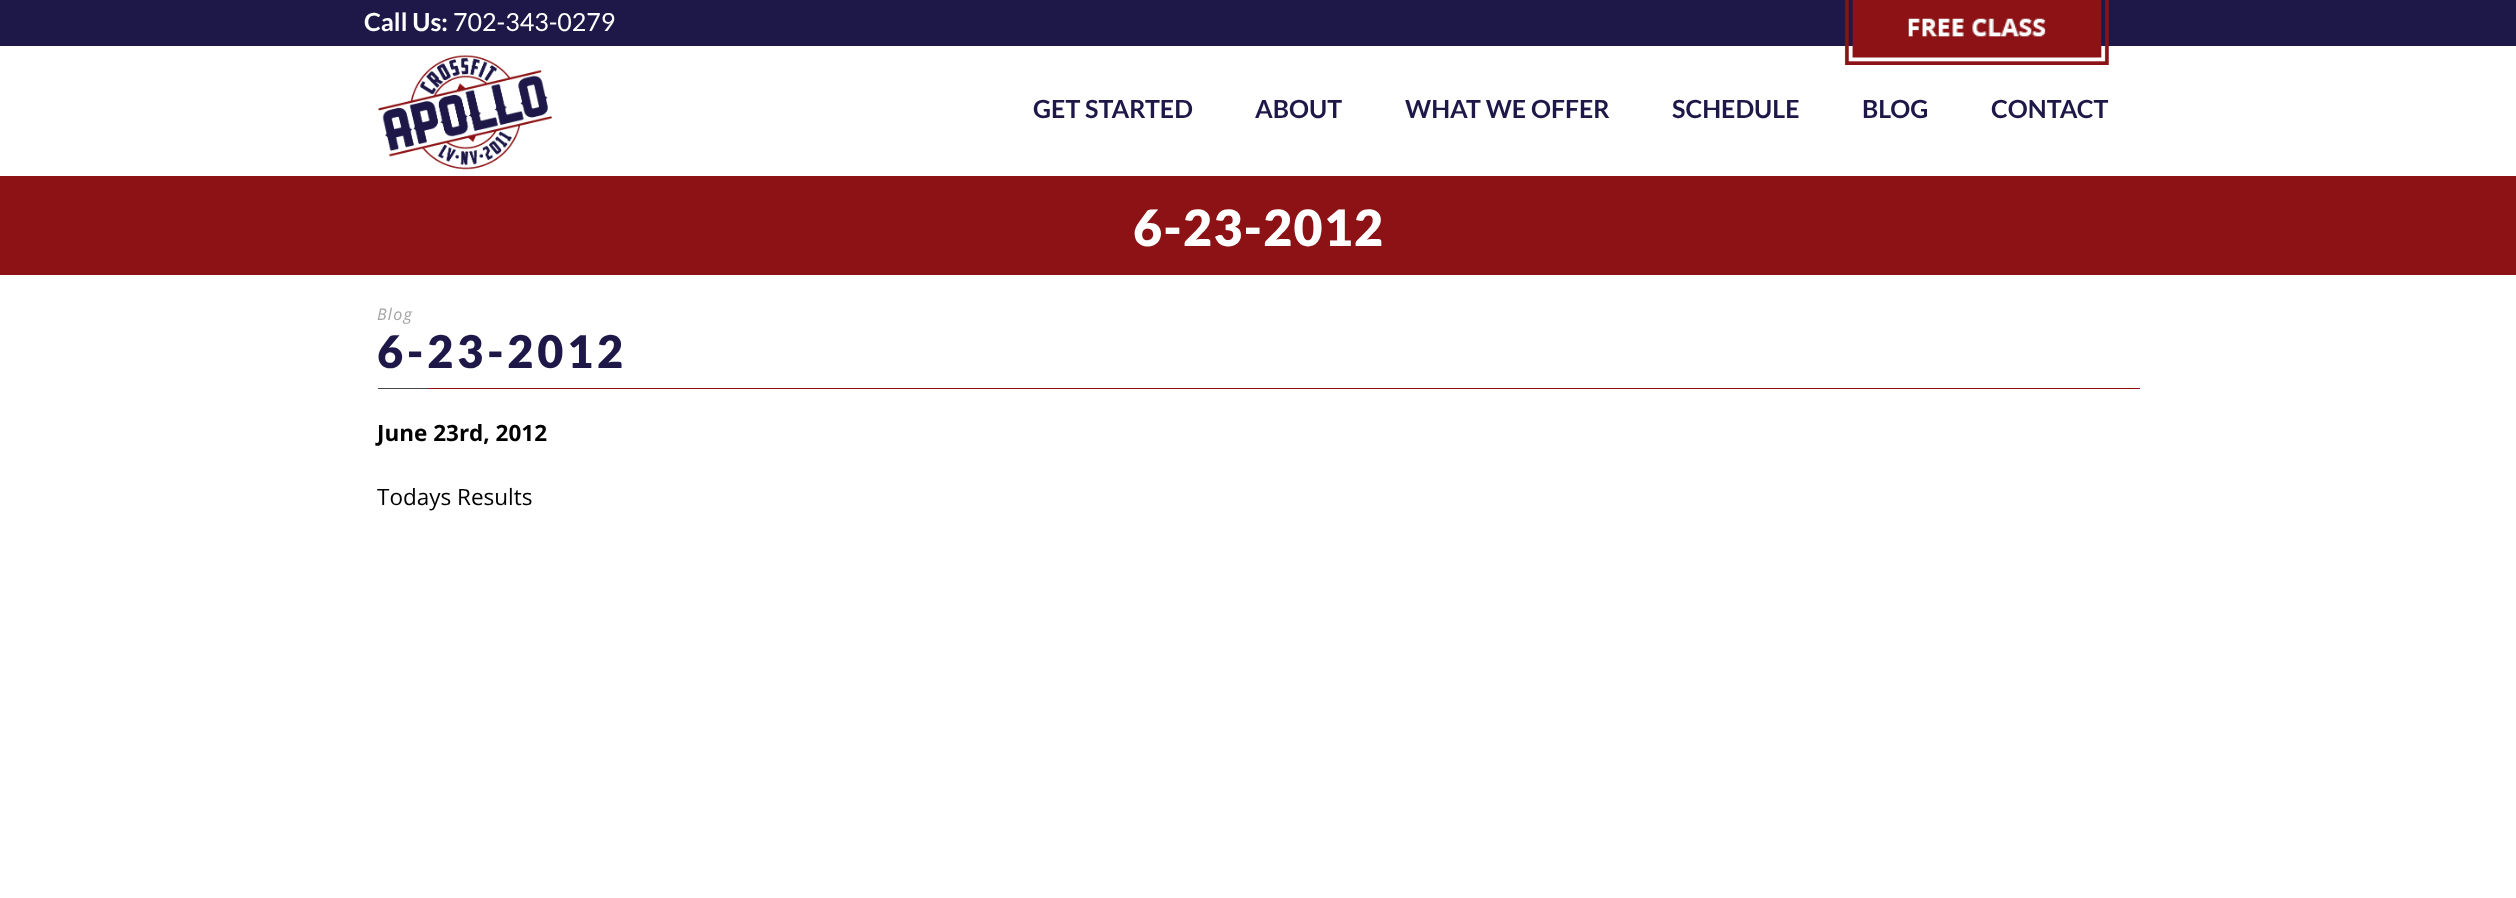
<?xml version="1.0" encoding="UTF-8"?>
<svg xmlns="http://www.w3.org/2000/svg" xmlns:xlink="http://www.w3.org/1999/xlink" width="2516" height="898">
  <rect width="100%" height="100%" fill="#ffffff" />
  <rect width="2516" height="46" fill="#1d1848" />
  <image x="1844" y="0" width="265" height="65" xlink:href="image1.png" />
  <image x="378" y="55" width="174" height="115" xlink:href="image2.png" />
  <rect y="176" width="2516" height="99" fill="#8c1215" />
  <rect x="428" y="388" width="1712" height="1" fill="#8c1215" />
  <rect x="378" y="388" width="50" height="1" fill="#464646" />
  <text x="364" y="31" style="font-family: Lato; font-size: 25px; font-weight: bold; fill: #ffffff">Call Us:</text>
  <text x="453" y="31" style="font-family: Lato; font-size: 25px; fill: #ffffff">702-343-0279</text>
  <text x="1033" y="118" style="font-family: Lato; font-size: 25px; font-weight: bold; fill: #1d1848">GET STARTED</text>
  <text x="1255" y="118" style="font-family: Lato; font-size: 25px; font-weight: bold; fill: #1d1848">ABOUT</text>
  <text x="1405" y="118" style="font-family: Lato; font-size: 25px; font-weight: bold; fill: #1d1848">WHAT WE OFFER</text>
  <text x="1672" y="118" style="font-family: Lato; font-size: 25px; font-weight: bold; fill: #1d1848">SCHEDULE</text>
  <text x="1862" y="118" style="font-family: Lato; font-size: 25px; font-weight: bold; fill: #1d1848">BLOG</text>
  <text x="1991" y="118" style="font-family: Lato; font-size: 25px; font-weight: bold; fill: #1d1848">CONTACT</text>
  <text x="1133" y="246" style="font-family: Lato; font-size: 50px; font-weight: 900; letter-spacing: 1.25px; fill: #ffffff">6-23-2012</text>
  <text x="377" y="320" style="font-family: Open Sans; font-size: 16px; font-style: italic; letter-spacing: 1.25px; fill: #a3a3a3">Blog</text>
  <text x="377" y="368" style="font-family: Lato; font-size: 45px; font-weight: 900; letter-spacing: 3.75px; fill: #1d1848">6-23-2012</text>
  <text x="377" y="441" style="font-family: Open Sans; font-size: 22.5px; font-weight: bold; fill: #000000">June 23rd, 2012</text>
  <text x="377" y="505" style="font-family: Open Sans; font-size: 22.5px; fill: #000000">Todays Results</text>
</svg>
